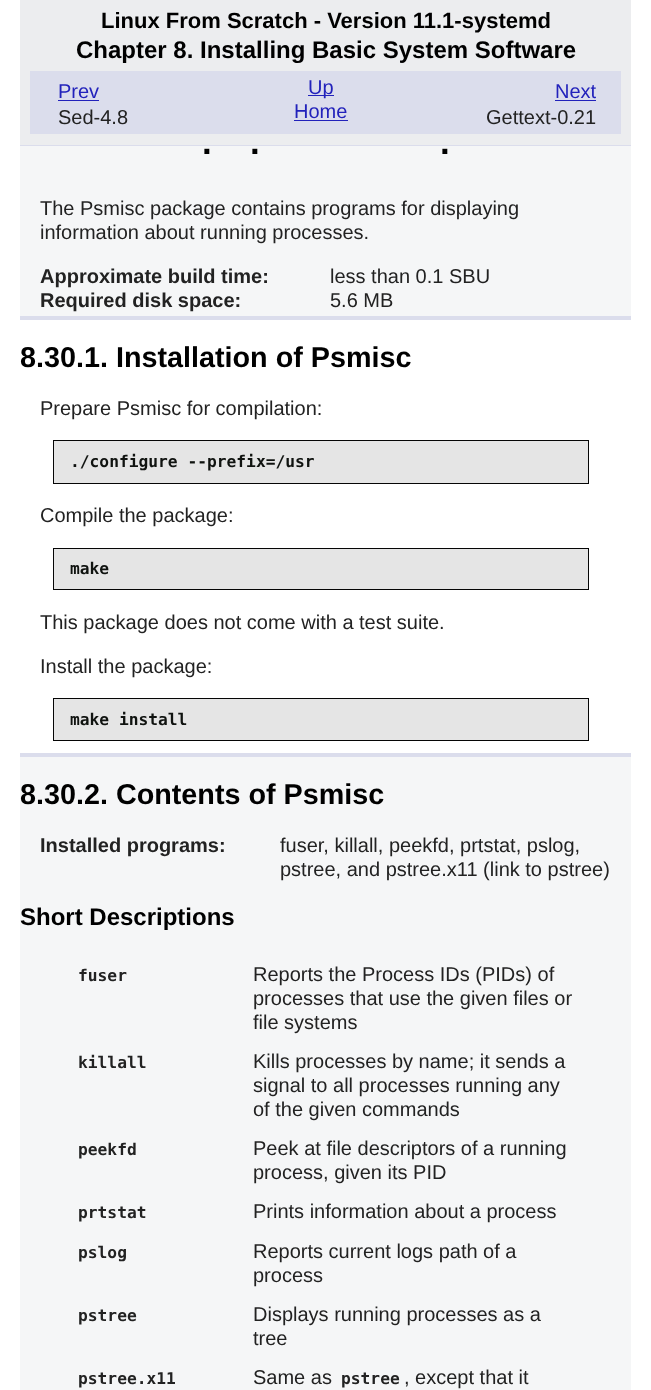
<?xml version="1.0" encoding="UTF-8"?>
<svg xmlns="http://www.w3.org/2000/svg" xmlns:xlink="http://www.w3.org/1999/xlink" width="651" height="1390">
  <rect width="100%" height="100%" fill="#ffffff" />
  <rect x="20" width="611" height="145" fill="#ecedef" />
  <rect x="20" y="145" width="611" height="1" fill="#dbddec" />
  <rect x="30" y="71" width="591" height="63" fill="#dbddec" />
  <rect x="58" y="100" width="41" height="1" fill="#2222bb" />
  <rect x="308" y="95" width="26" height="1" fill="#2222bb" />
  <rect x="555" y="100" width="41" height="1" fill="#2222bb" />
  <rect x="294" y="120" width="54" height="1" fill="#2222bb" />
  <rect x="20" y="146" width="611" height="170" fill="#f5f6f7" />
  <rect x="20" y="316" width="611" height="4" fill="#dbddec" />
  <rect x="53.5" y="440.5" width="535" height="43" fill="#e5e5e5" stroke="#050505" />
  <rect x="53.5" y="548.5" width="535" height="41" fill="#e5e5e5" stroke="#050505" />
  <rect x="53.5" y="698.5" width="535" height="42" fill="#e5e5e5" stroke="#050505" />
  <rect x="20" y="757" width="611" height="633" fill="#f5f6f7" />
  <rect x="20" y="753" width="611" height="4" fill="#dbddec" />
  <text x="101" y="28" style="font-family: Liberation Sans; font-size: 22px; font-weight: bold; fill: #000000">Linux From Scratch - Version 11.1-systemd</text>
  <text x="76" y="58" style="font-family: Liberation Sans; font-size: 24px; font-weight: bold; fill: #000000">Chapter 8. Installing Basic System Software</text>
  <text x="58" y="98" style="font-family: Liberation Sans; font-size: 20px; fill: #2222bb">Prev</text>
  <text x="58" y="124" style="font-family: Liberation Sans; font-size: 20px; fill: #222222">Sed-4.8</text>
  <text x="308" y="94" style="font-family: Liberation Sans; font-size: 20px; fill: #2222bb">Up</text>
  <text x="555" y="98" style="font-family: Liberation Sans; font-size: 20px; fill: #2222bb">Next</text>
  <text x="486" y="124" style="font-family: Liberation Sans; font-size: 20px; fill: #222222">Gettext-0.21</text>
  <text x="294" y="118" style="font-family: Liberation Sans; font-size: 20px; fill: #2222bb">Home</text>
  <text x="202" y="154" style="font-family: Liberation Sans; font-size: 35px; font-weight: bold; fill: #000000">.</text>
  <text x="250" y="154" style="font-family: Liberation Sans; font-size: 35px; font-weight: bold; fill: #000000">.</text>
  <text x="440" y="154" style="font-family: Liberation Sans; font-size: 35px; font-weight: bold; fill: #000000">.</text>
  <text x="40" y="215" style="font-family: Liberation Sans; font-size: 20px; fill: #222222">The Psmisc package contains programs for displaying</text>
  <text x="40" y="239" style="font-family: Liberation Sans; font-size: 20px; fill: #222222">information about running processes.</text>
  <text x="40" y="283" style="font-family: Liberation Sans; font-size: 20px; font-weight: bold; fill: #222222">Approximate build time:</text>
  <text x="330" y="283" style="font-family: Liberation Sans; font-size: 20px; fill: #222222">less than 0.1 SBU</text>
  <text x="40" y="307" style="font-family: Liberation Sans; font-size: 20px; font-weight: bold; fill: #222222">Required disk space:</text>
  <text x="330" y="307" style="font-family: Liberation Sans; font-size: 20px; fill: #222222">5.6 MB</text>
  <text x="20" y="367" style="font-family: Liberation Sans; font-size: 28.75px; font-weight: bold; fill: #000000">8.30.1. Installation of Psmisc</text>
  <text x="40" y="415" style="font-family: Liberation Sans; font-size: 20px; fill: #222222">Prepare Psmisc for compilation:</text>
  <text x="70" y="467" style="font-family: DejaVu Sans Mono; font-size: 16.25px; font-weight: bold; fill: #101310">./configure --prefix=/usr</text>
  <text x="40" y="522" style="font-family: Liberation Sans; font-size: 20px; fill: #222222">Compile the package:</text>
  <text x="70" y="574" style="font-family: DejaVu Sans Mono; font-size: 16.25px; font-weight: bold; fill: #101310">make</text>
  <text x="40" y="629" style="font-family: Liberation Sans; font-size: 20px; fill: #222222">This package does not come with a test suite.</text>
  <text x="40" y="673" style="font-family: Liberation Sans; font-size: 20px; fill: #222222">Install the package:</text>
  <text x="70" y="725" style="font-family: DejaVu Sans Mono; font-size: 16.25px; font-weight: bold; fill: #101310">make install</text>
  <text x="20" y="804" style="font-family: Liberation Sans; font-size: 28.75px; font-weight: bold; fill: #000000">8.30.2. Contents of Psmisc</text>
  <text x="40" y="852" style="font-family: Liberation Sans; font-size: 20px; font-weight: bold; fill: #222222">Installed programs:</text>
  <text x="280" y="852" style="font-family: Liberation Sans; font-size: 20px; fill: #222222">fuser, killall, peekfd, prtstat, pslog,</text>
  <text x="280" y="876" style="font-family: Liberation Sans; font-size: 20px; fill: #222222">pstree, and pstree.x11 (link to pstree)</text>
  <text x="20" y="925" style="font-family: Liberation Sans; font-size: 24px; font-weight: bold; fill: #000000">Short Descriptions</text>
  <text x="78" y="981" style="font-family: DejaVu Sans Mono; font-size: 16.25px; font-weight: bold; fill: #222222">fuser</text>
  <text x="253" y="981" style="font-family: Liberation Sans; font-size: 20px; fill: #222222">Reports the Process IDs (PIDs) of</text>
  <text x="253" y="1005" style="font-family: Liberation Sans; font-size: 20px; fill: #222222">processes that use the given files or</text>
  <text x="253" y="1029" style="font-family: Liberation Sans; font-size: 20px; fill: #222222">file systems</text>
  <text x="78" y="1068" style="font-family: DejaVu Sans Mono; font-size: 16.25px; font-weight: bold; fill: #222222">killall</text>
  <text x="253" y="1068" style="font-family: Liberation Sans; font-size: 20px; fill: #222222">Kills processes by name; it sends a</text>
  <text x="253" y="1092" style="font-family: Liberation Sans; font-size: 20px; fill: #222222">signal to all processes running any</text>
  <text x="253" y="1116" style="font-family: Liberation Sans; font-size: 20px; fill: #222222">of the given commands</text>
  <text x="78" y="1155" style="font-family: DejaVu Sans Mono; font-size: 16.25px; font-weight: bold; fill: #222222">peekfd</text>
  <text x="253" y="1155" style="font-family: Liberation Sans; font-size: 20px; fill: #222222">Peek at file descriptors of a running</text>
  <text x="253" y="1179" style="font-family: Liberation Sans; font-size: 20px; fill: #222222">process, given its PID</text>
  <text x="78" y="1218" style="font-family: DejaVu Sans Mono; font-size: 16.25px; font-weight: bold; fill: #222222">prtstat</text>
  <text x="253" y="1218" style="font-family: Liberation Sans; font-size: 20px; fill: #222222">Prints information about a process</text>
  <text x="78" y="1258" style="font-family: DejaVu Sans Mono; font-size: 16.25px; font-weight: bold; fill: #222222">pslog</text>
  <text x="253" y="1258" style="font-family: Liberation Sans; font-size: 20px; fill: #222222">Reports current logs path of a</text>
  <text x="253" y="1282" style="font-family: Liberation Sans; font-size: 20px; fill: #222222">process</text>
  <text x="78" y="1321" style="font-family: DejaVu Sans Mono; font-size: 16.25px; font-weight: bold; fill: #222222">pstree</text>
  <text x="253" y="1321" style="font-family: Liberation Sans; font-size: 20px; fill: #222222">Displays running processes as a</text>
  <text x="253" y="1345" style="font-family: Liberation Sans; font-size: 20px; fill: #222222">tree</text>
  <text x="78" y="1384" style="font-family: DejaVu Sans Mono; font-size: 16.25px; font-weight: bold; fill: #222222">pstree.x11</text>
  <text x="253" y="1384" style="font-family: Liberation Sans; font-size: 20px; fill: #222222">Same as</text>
  <text x="341" y="1384" style="font-family: DejaVu Sans Mono; font-size: 16.25px; font-weight: bold; fill: #222222">pstree</text>
  <text x="404" y="1384" style="font-family: Liberation Sans; font-size: 20px; fill: #222222">, except that it</text>
</svg>
